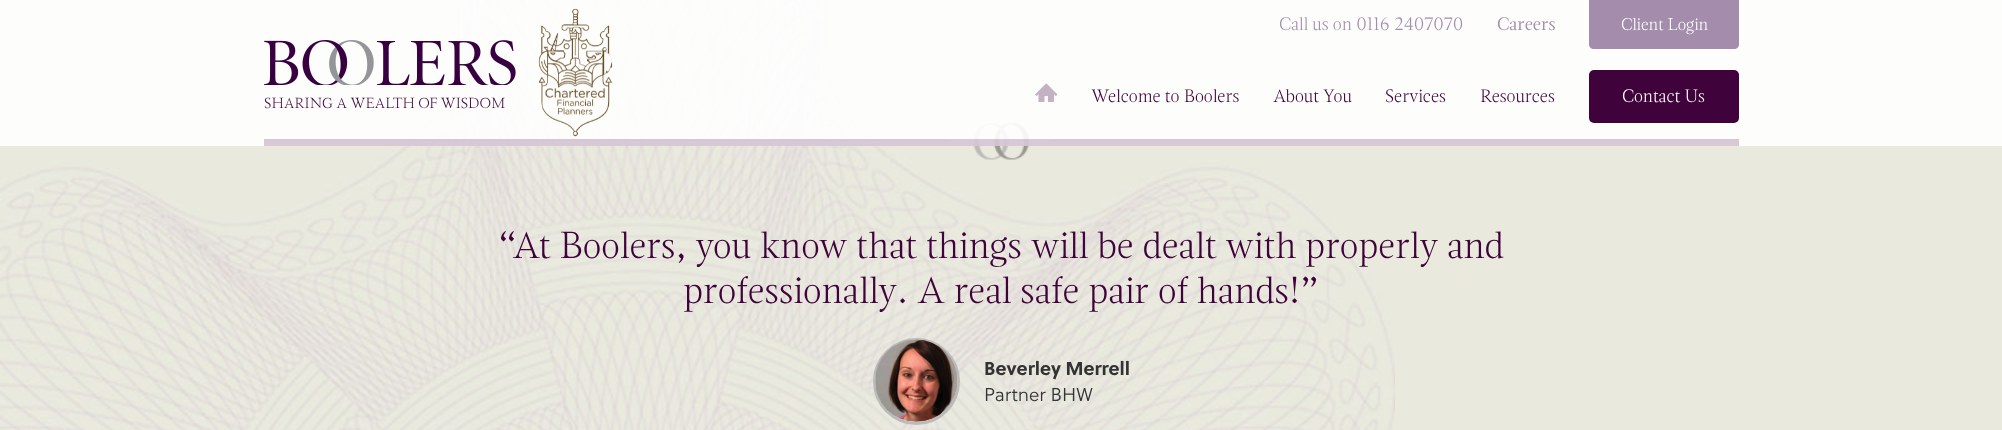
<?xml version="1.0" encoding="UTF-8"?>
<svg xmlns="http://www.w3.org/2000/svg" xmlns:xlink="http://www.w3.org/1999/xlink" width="2002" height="430">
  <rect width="100%" height="100%" fill="#e9e9de" />
  <image x="0" y="0" width="1395" height="430" xlink:href="image4.png" />
  <image x="263" y="123" width="1476" height="37" xlink:href="image5.png" />
  <rect width="2002" height="146" fill="#ffffff" fill-opacity="0.9" />
  <rect x="264" y="139" width="1475" height="7" fill="#3f023a" fill-opacity="0.2" />
  <path d="M 1589 0 h 150 v 44 c 0 3 -2 5 -5 5 h -140 c -3 0 -5 -2 -5 -5 z" fill="#a48dac" />
  <image x="264" y="40" width="252" height="45" xlink:href="image1.png" />
  <image x="538" y="8" width="75" height="129" xlink:href="image2.png" />
  <image x="1035" y="83" width="23" height="19" xlink:href="image3.png" />
  <rect x="1589" y="70" width="150" height="53" rx="5" fill="#3f023a" />
  <circle cx="916.5" cy="381.5" r="42" fill="#ffffff" stroke="#bbbbbb" stroke-width="3" />
  <image x="875" y="339" width="83" height="83" xlink:href="image6.png" />
  <text x="1279" y="30" style="font-family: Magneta; font-size: 18px; font-weight: 100; fill: #a48dac">Call us on 0116 2407070</text>
  <text x="1497" y="30" style="font-family: Magneta; font-size: 18px; fill: #a48dac">Careers</text>
  <text x="1621" y="30" style="font-family: Magneta; font-size: 17px; font-weight: 100; fill: #ffffff">Client Login</text>
  <text x="264" y="108" style="font-family: Magneta; font-size: 14.6px; font-weight: 100; fill: #3f023a">SHARING A WEALTH OF WISDOM</text>
  <text x="1091" y="102" style="font-family: Magneta; font-size: 18px; font-weight: 100; fill: #3f023a">Welcome to Boolers</text>
  <text x="1273" y="102" style="font-family: Magneta; font-size: 18px; font-weight: 100; fill: #3f023a">About You</text>
  <text x="1385" y="102" style="font-family: Magneta; font-size: 18px; font-weight: 100; fill: #3f023a">Services</text>
  <text x="1480" y="102" style="font-family: Magneta; font-size: 18px; font-weight: 100; fill: #3f023a">Resources</text>
  <text x="1622" y="102" style="font-family: Magneta; font-size: 18px; font-weight: 100; fill: #ffffff">Contact Us</text>
  <text x="498" y="258" style="font-family: Magneta; font-size: 37.5px; font-weight: 100; fill: #3f023a">“At Boolers, you know that things will be dealt with properly and</text>
  <text x="683" y="303" style="font-family: Magneta; font-size: 37.5px; font-weight: 100; fill: #3f023a">professionally. A real safe pair of hands!”</text>
  <text x="984" y="375" style="font-family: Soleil; font-size: 18.75px; font-weight: bold; fill: #333333">Beverley Merrell</text>
  <text x="984" y="401" style="font-family: Soleil; font-size: 18.75px; font-weight: 300; fill: #333333">Partner BHW</text>
</svg>
